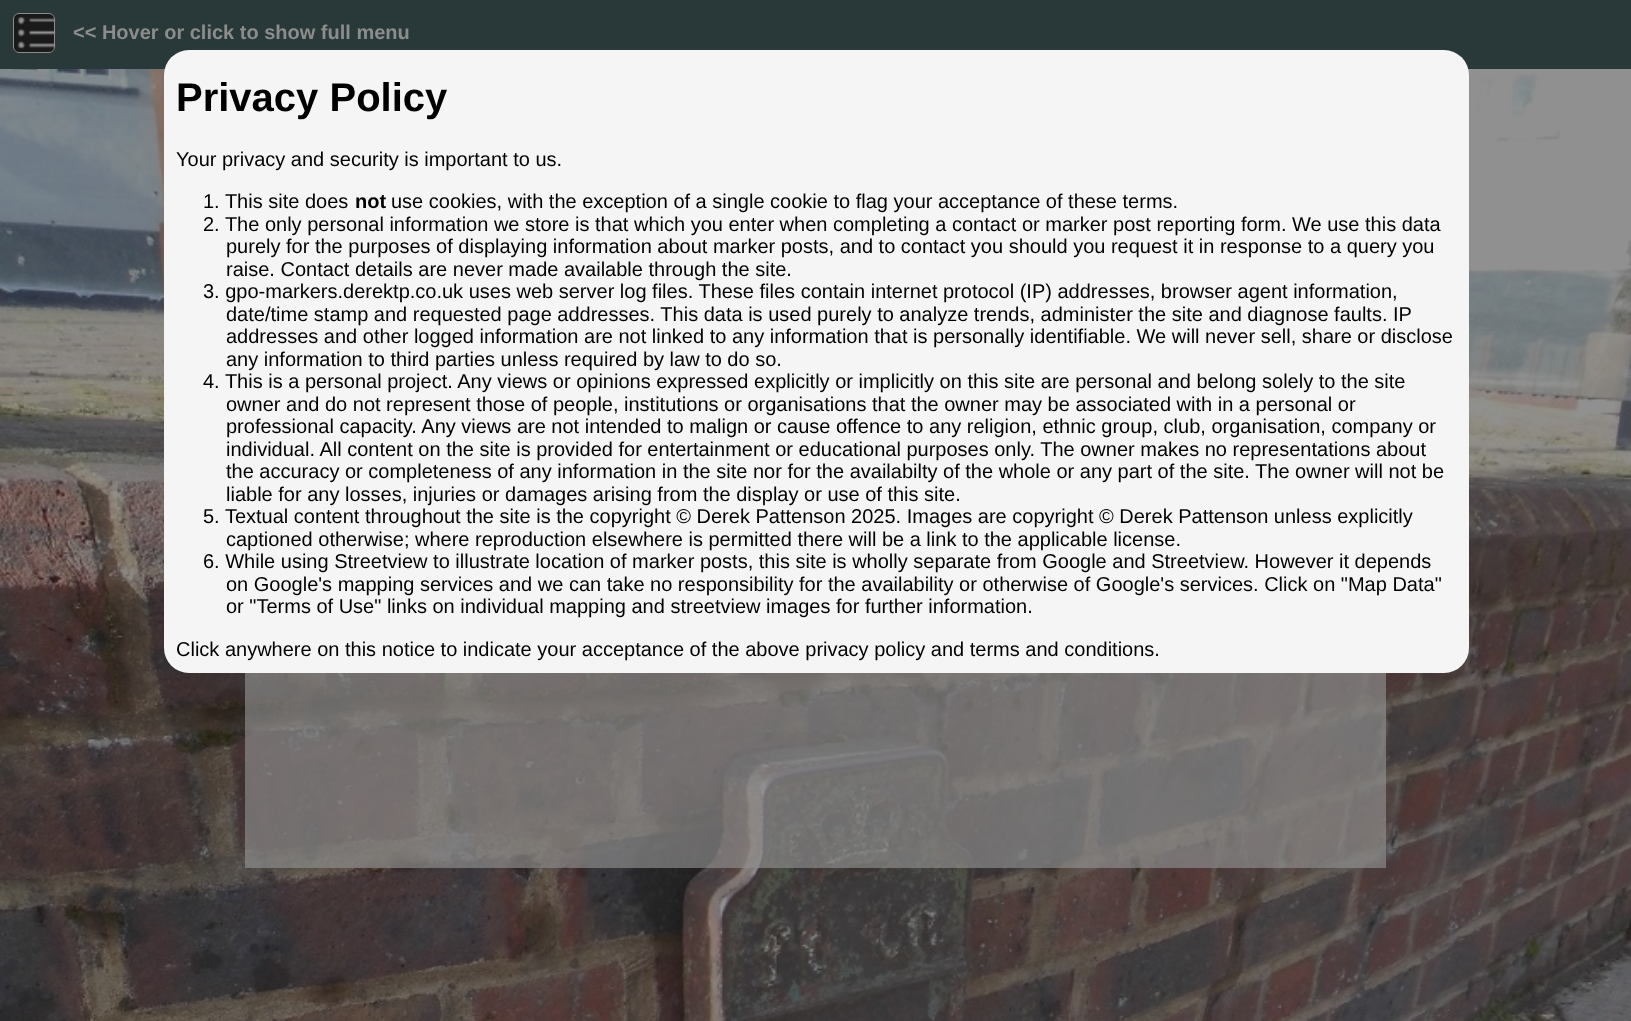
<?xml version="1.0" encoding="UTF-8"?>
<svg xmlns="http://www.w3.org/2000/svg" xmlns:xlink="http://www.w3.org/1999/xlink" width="1631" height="1021">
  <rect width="100%" height="100%" fill="#ffffff" />
  <image x="0" y="69" width="1631" height="952" xlink:href="image1.png" />
  <rect width="1631" height="69" fill="#293939" />
  <rect x="13" y="13" width="42" height="40" rx="6" fill="#1a1a1a" />
  <image x="17" y="16" width="39" height="33" xlink:href="image2.png" />
  <rect x="13.5" y="13.5" width="41" height="39" rx="5.5" fill="none" stroke="#8c8c8c" />
  <rect x="164" y="50" width="1305" height="623" rx="25" fill="#f5f5f5" />
  <rect x="245" y="673" width="1141" height="195" fill="#919191" fill-opacity="0.65" />
  <text x="73" y="39" style="font-family: Liberation Sans; font-size: 20px; font-weight: bold; fill: #8c8c8c">&lt;&lt; Hover or click to show full menu</text>
  <text x="176" y="111" style="font-family: Liberation Sans; font-size: 40px; font-weight: bold; fill: #000000">Privacy Policy</text>
  <text x="176" y="166" style="font-family: Liberation Sans; font-size: 20px; fill: #000000">Your privacy and security is important to us.</text>
  <text x="203" y="208" style="font-family: Liberation Sans; font-size: 20px; fill: #000000">1. This site does</text>
  <text x="355" y="208" style="font-family: Liberation Sans; font-size: 20px; font-weight: bold; fill: #000000">not</text>
  <text x="391" y="208" style="font-family: Liberation Sans; font-size: 20px; fill: #000000">use cookies, with the exception of a single cookie to flag your acceptance of these terms.</text>
  <text x="203" y="231" style="font-family: Liberation Sans; font-size: 20px; fill: #000000">2. The only personal information we store is that which you enter when completing a contact or marker post reporting form. We use this data</text>
  <text x="226" y="253" style="font-family: Liberation Sans; font-size: 20px; fill: #000000">purely for the purposes of displaying information about marker posts, and to contact you should you request it in response to a query you</text>
  <text x="226" y="276" style="font-family: Liberation Sans; font-size: 20px; fill: #000000">raise. Contact details are never made available through the site.</text>
  <text x="203" y="298" style="font-family: Liberation Sans; font-size: 20px; fill: #000000">3. gpo-markers.derektp.co.uk uses web server log files. These files contain internet protocol (IP) addresses, browser agent information,</text>
  <text x="226" y="321" style="font-family: Liberation Sans; font-size: 20px; fill: #000000">date/time stamp and requested page addresses. This data is used purely to analyze trends, administer the site and diagnose faults. IP</text>
  <text x="226" y="343" style="font-family: Liberation Sans; font-size: 20px; fill: #000000">addresses and other logged information are not linked to any information that is personally identifiable. We will never sell, share or disclose</text>
  <text x="226" y="366" style="font-family: Liberation Sans; font-size: 20px; fill: #000000">any information to third parties unless required by law to do so.</text>
  <text x="203" y="388" style="font-family: Liberation Sans; font-size: 20px; fill: #000000">4. This is a personal project. Any views or opinions expressed explicitly or implicitly on this site are personal and belong solely to the site</text>
  <text x="226" y="411" style="font-family: Liberation Sans; font-size: 20px; fill: #000000">owner and do not represent those of people, institutions or organisations that the owner may be associated with in a personal or</text>
  <text x="226" y="433" style="font-family: Liberation Sans; font-size: 20px; fill: #000000">professional capacity. Any views are not intended to malign or cause offence to any religion, ethnic group, club, organisation, company or</text>
  <text x="226" y="456" style="font-family: Liberation Sans; font-size: 20px; fill: #000000">individual. All content on the site is provided for entertainment or educational purposes only. The owner makes no representations about</text>
  <text x="226" y="478" style="font-family: Liberation Sans; font-size: 20px; fill: #000000">the accuracy or completeness of any information in the site nor for the availabilty of the whole or any part of the site. The owner will not be</text>
  <text x="226" y="501" style="font-family: Liberation Sans; font-size: 20px; fill: #000000">liable for any losses, injuries or damages arising from the display or use of this site.</text>
  <text x="203" y="523" style="font-family: Liberation Sans; font-size: 20px; fill: #000000">5. Textual content throughout the site is the copyright © Derek Pattenson 2025. Images are copyright © Derek Pattenson unless explicitly</text>
  <text x="226" y="546" style="font-family: Liberation Sans; font-size: 20px; fill: #000000">captioned otherwise; where reproduction elsewhere is permitted there will be a link to the applicable license.</text>
  <text x="203" y="568" style="font-family: Liberation Sans; font-size: 20px; fill: #000000">6. While using Streetview to illustrate location of marker posts, this site is wholly separate from Google and Streetview. However it depends</text>
  <text x="226" y="591" style="font-family: Liberation Sans; font-size: 20px; fill: #000000">on Google's mapping services and we can take no responsibility for the availability or otherwise of Google's services. Click on "Map Data"</text>
  <text x="226" y="613" style="font-family: Liberation Sans; font-size: 20px; fill: #000000">or "Terms of Use" links on individual mapping and streetview images for further information.</text>
  <text x="176" y="656" style="font-family: Liberation Sans; font-size: 20px; fill: #000000">Click anywhere on this notice to indicate your acceptance of the above privacy policy and terms and conditions.</text>
</svg>
